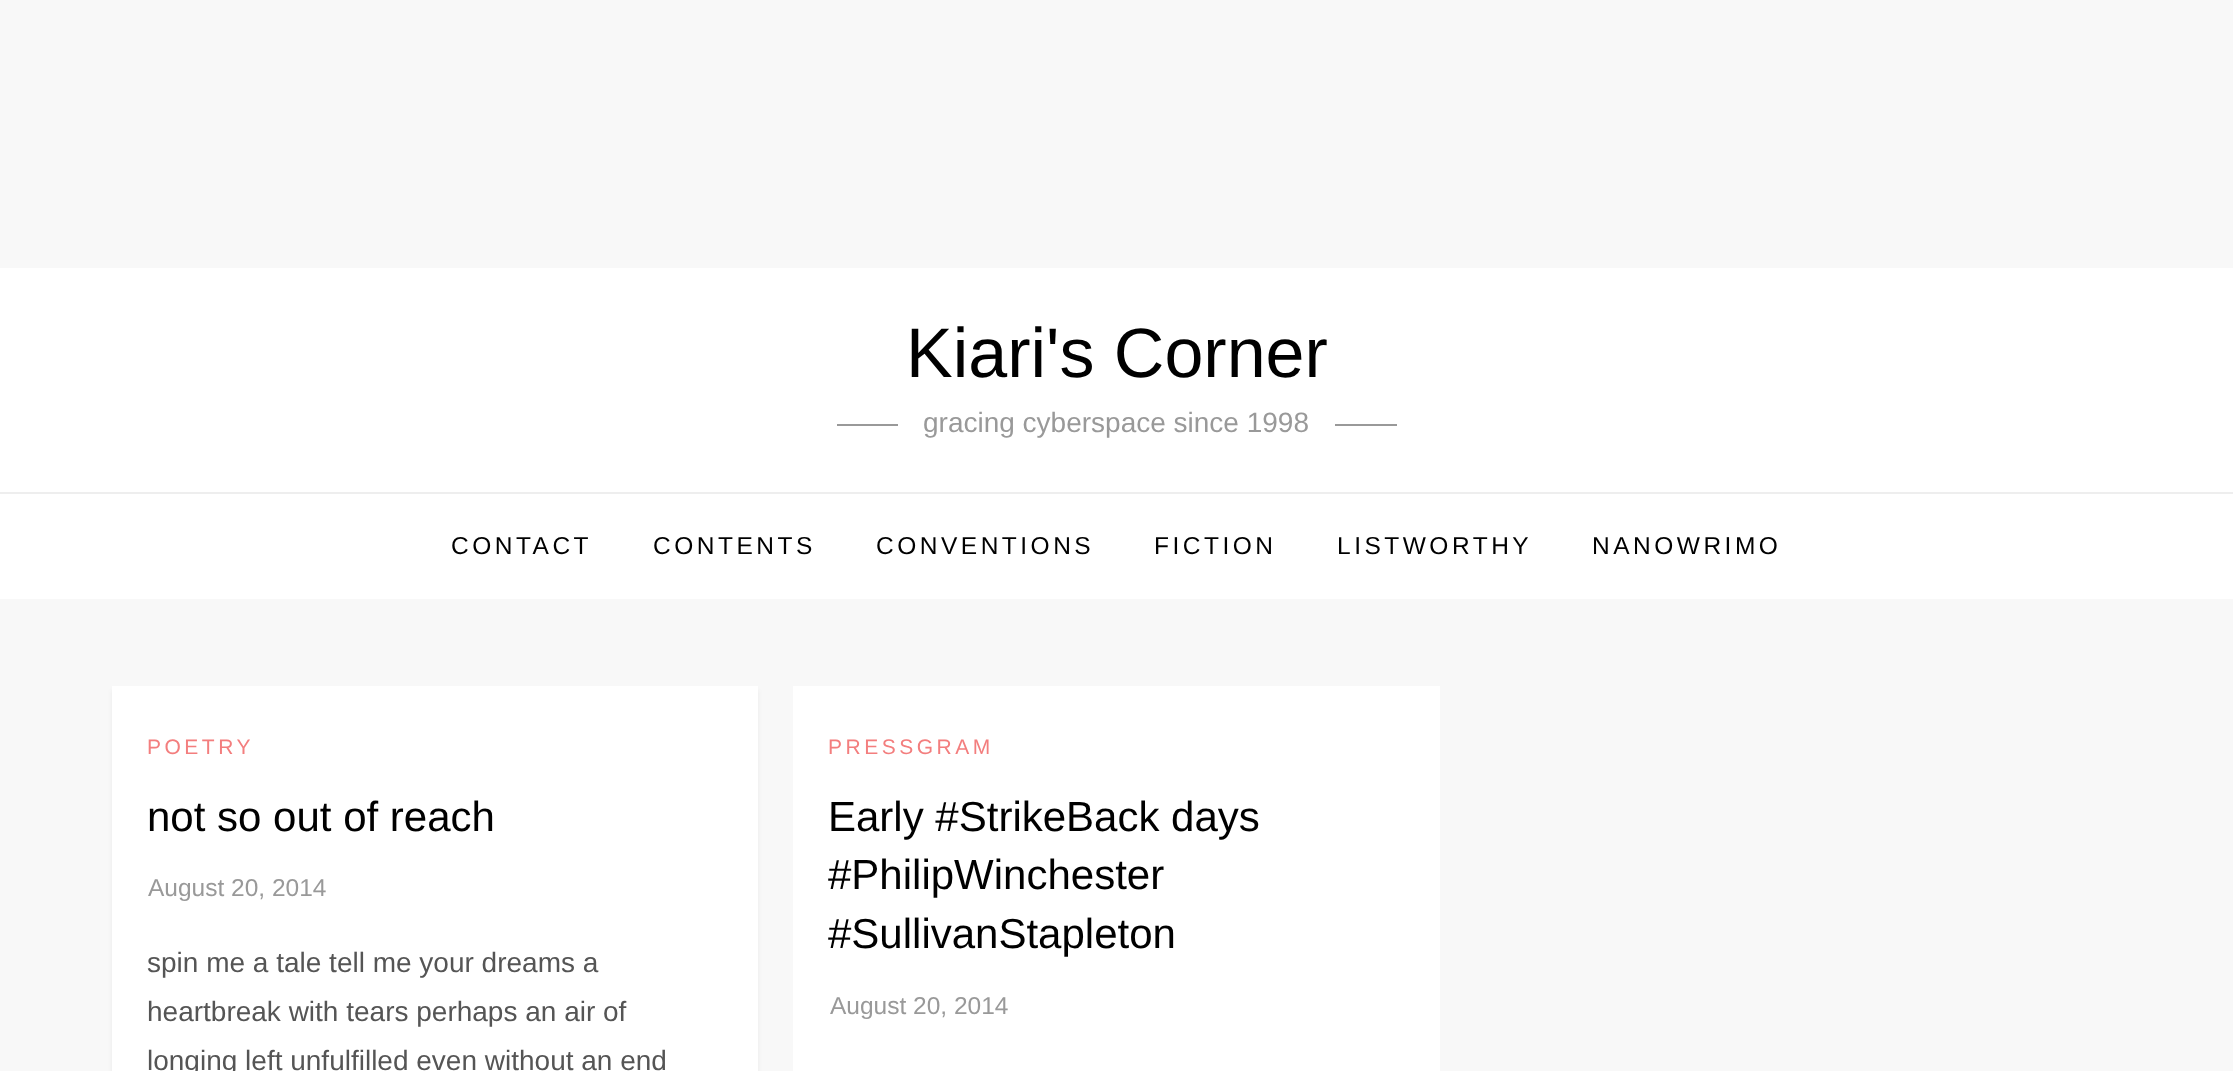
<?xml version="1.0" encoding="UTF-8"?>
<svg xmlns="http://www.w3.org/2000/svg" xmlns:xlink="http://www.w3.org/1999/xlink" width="2233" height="1071">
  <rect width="100%" height="100%" fill="#f8f8f8" />
  <rect y="268" width="2233" height="331" fill="#ffffff" />
  <rect x="837" y="424" width="61" height="2" fill="#999999" />
  <rect x="1335" y="424" width="62" height="2" fill="#999999" />
  <rect y="492" width="2233" height="2" fill="#eeeeee" />
  <rect x="112" y="690" width="646" height="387" fill="#000000" fill-opacity="0.06" filter="blur(2px)" />
  <rect x="112" y="686" width="646" height="385" fill="#ffffff" />
  <rect x="793" y="686" width="647" height="385" fill="#ffffff" />
  <text x="906" y="377" style="font-family: Liberation Sans; font-size: 70px; fill: #000000">Kiari's Corner</text>
  <text x="923" y="432" style="font-family: Liberation Sans; font-size: 28px; fill: #999999">gracing cyberspace since 1998</text>
  <text x="451" y="554" style="font-family: Liberation Sans; font-size: 24.5px; letter-spacing: 3.5px; fill: #000000">CONTACT</text>
  <text x="653" y="554" style="font-family: Liberation Sans; font-size: 24.5px; letter-spacing: 3.5px; fill: #000000">CONTENTS</text>
  <text x="876" y="554" style="font-family: Liberation Sans; font-size: 24.5px; letter-spacing: 3.5px; fill: #000000">CONVENTIONS</text>
  <text x="1154" y="554" style="font-family: Liberation Sans; font-size: 24.5px; letter-spacing: 3.5px; fill: #000000">FICTION</text>
  <text x="1337" y="554" style="font-family: Liberation Sans; font-size: 24.5px; letter-spacing: 3.5px; fill: #000000">LISTWORTHY</text>
  <text x="1592" y="554" style="font-family: Liberation Sans; font-size: 24.5px; letter-spacing: 3.5px; fill: #000000">NANOWRIMO</text>
  <text x="147" y="754" style="font-family: Liberation Sans; font-size: 21px; letter-spacing: 3.5px; fill: #f37e7e">POETRY</text>
  <text x="147" y="831" style="font-family: Liberation Sans; font-size: 42px; fill: #000000">not so out of reach</text>
  <text x="148" y="896" style="font-family: Liberation Sans; font-size: 24.5px; fill: #999999">August 20, 2014</text>
  <text x="147" y="972" style="font-family: Liberation Sans; font-size: 28px; fill: #555555">spin me a tale tell me your dreams a</text>
  <text x="147" y="1021" style="font-family: Liberation Sans; font-size: 28px; fill: #555555">heartbreak with tears perhaps an air of</text>
  <text x="147" y="1070" style="font-family: Liberation Sans; font-size: 28px; fill: #555555">longing left unfulfilled even without an end</text>
  <text x="828" y="754" style="font-family: Liberation Sans; font-size: 21px; letter-spacing: 3.5px; fill: #f37e7e">PRESSGRAM</text>
  <text x="828" y="831" style="font-family: Liberation Sans; font-size: 42px; fill: #000000">Early #StrikeBack days</text>
  <text x="828" y="889" style="font-family: Liberation Sans; font-size: 42px; fill: #000000">#PhilipWinchester</text>
  <text x="828" y="948" style="font-family: Liberation Sans; font-size: 42px; fill: #000000">#SullivanStapleton</text>
  <text x="830" y="1014" style="font-family: Liberation Sans; font-size: 24.5px; fill: #999999">August 20, 2014</text>
</svg>
